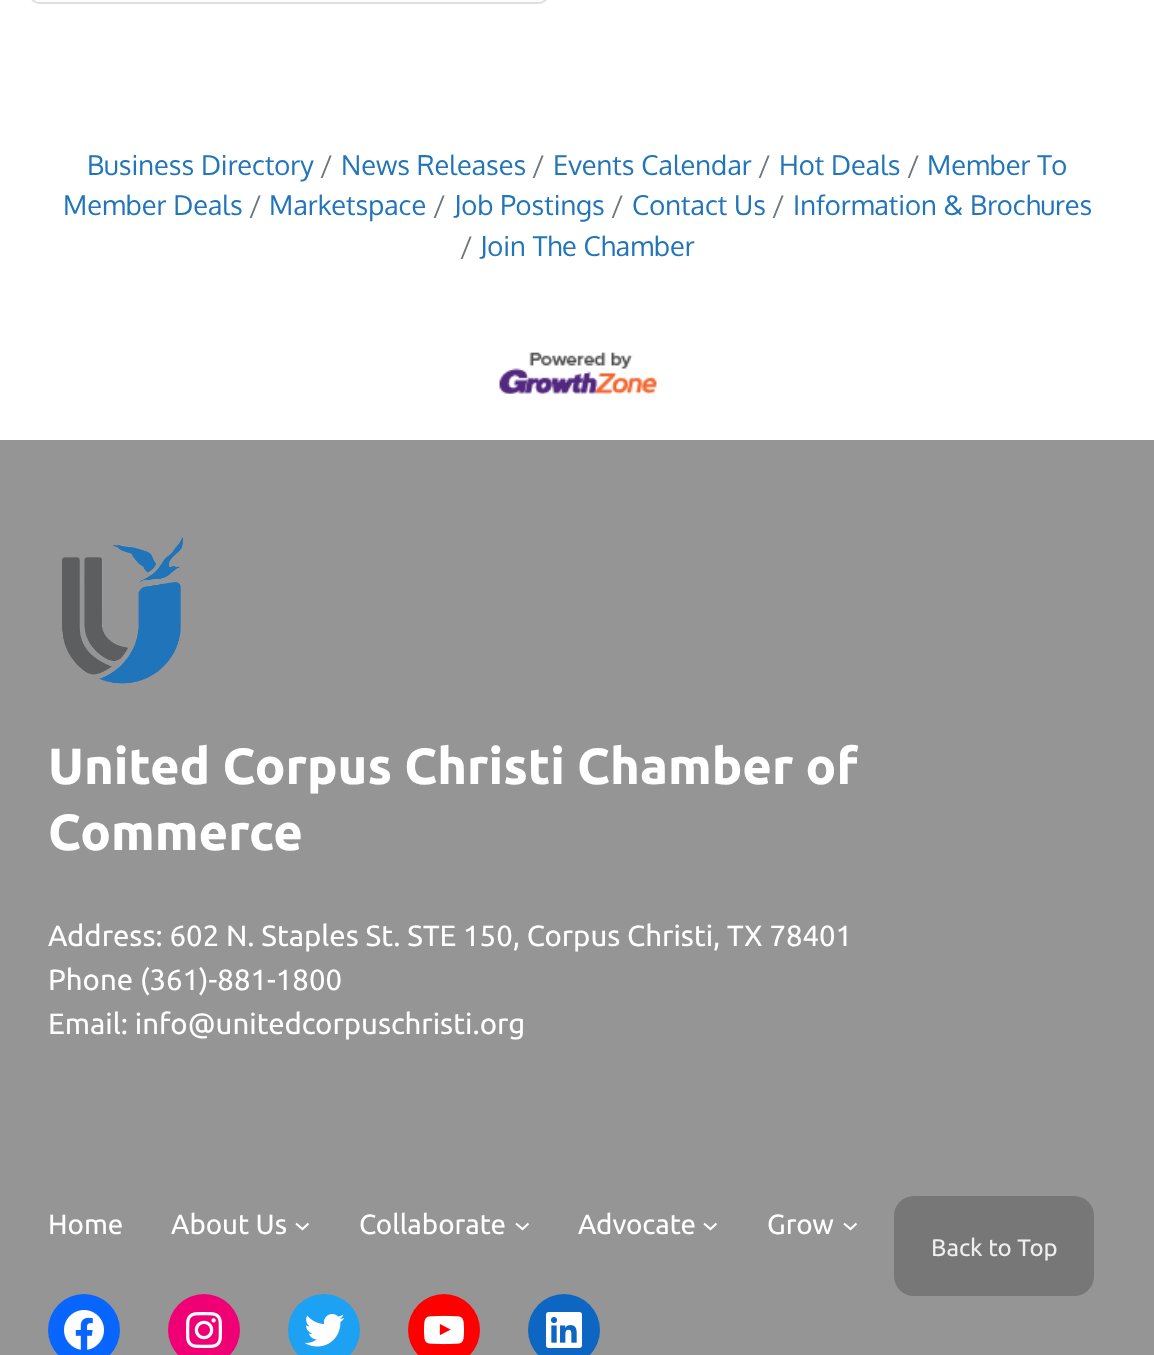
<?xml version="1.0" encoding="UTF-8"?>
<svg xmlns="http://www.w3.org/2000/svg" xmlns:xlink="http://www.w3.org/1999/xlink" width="1154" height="1355">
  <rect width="100%" height="100%" fill="#ffffff" />
  <rect x="31" y="-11" width="516" height="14" rx="9" fill="none" stroke="#dfdfdf" stroke-width="2" />
  <image x="499" y="352" width="158" height="42" xlink:href="image1.png" />
  <rect y="440" width="1154" height="915" fill="#959595" />
  <image x="62" y="537" width="121" height="147" xlink:href="image2.png" />
  <path d="M 296 1223.5 l 6.5 5.5 l 6 -5.5" fill="none" stroke="#ffffff" stroke-width="2.1" />
  <path d="M 516 1223.5 l 6.5 5.5 l 6 -5.5" fill="none" stroke="#ffffff" stroke-width="2.1" />
  <path d="M 704 1223.5 l 6.5 5.5 l 6 -5.5" fill="none" stroke="#ffffff" stroke-width="2.1" />
  <path d="M 844 1223.5 l 6.5 5.5 l 6 -5.5" fill="none" stroke="#ffffff" stroke-width="2.1" />
  <circle cx="84" cy="1330" r="36" fill="#0866ff" />
  <image x="64" y="1310" width="40" height="40" xlink:href="image3.png" />
  <circle cx="204" cy="1330" r="36" fill="#f00075" />
  <image x="186" y="1312" width="36" height="36" xlink:href="image4.png" />
  <circle cx="324" cy="1330" r="36" fill="#1da1f2" />
  <image x="304" y="1314" width="41" height="33" xlink:href="image5.png" />
  <circle cx="444" cy="1330" r="36" fill="#ff0000" />
  <image x="424" y="1315" width="40" height="30" xlink:href="image6.png" />
  <circle cx="564" cy="1330" r="36" fill="#0d66c2" />
  <image x="546" y="1312" width="36" height="36" xlink:href="image7.png" />
  <rect x="894" y="1196" width="200" height="100" rx="20" fill="#777777" />
  <text x="907" y="175" style="font-family: Oxygen; font-size: 27.25px; fill: #6c757d">/</text>
  <text x="927" y="175" style="font-family: Oxygen; font-size: 27.25px; fill: #2275b9">Member To</text>
  <text x="63" y="215" style="font-family: Oxygen; font-size: 27.25px; fill: #2275b9">Member Deals</text>
  <text x="87" y="175" style="font-family: Oxygen; font-size: 27.25px; fill: #2275b9">Business Directory</text>
  <text x="320" y="175" style="font-family: Oxygen; font-size: 27.25px; fill: #6c757d">/</text>
  <text x="341" y="175" style="font-family: Oxygen; font-size: 27.25px; fill: #2275b9">News Releases</text>
  <text x="532" y="175" style="font-family: Oxygen; font-size: 27.25px; fill: #6c757d">/</text>
  <text x="553" y="175" style="font-family: Oxygen; font-size: 27.25px; fill: #2275b9">Events Calendar</text>
  <text x="758" y="175" style="font-family: Oxygen; font-size: 27.25px; fill: #6c757d">/</text>
  <text x="779" y="175" style="font-family: Oxygen; font-size: 27.25px; fill: #2275b9">Hot Deals</text>
  <text x="249" y="215" style="font-family: Oxygen; font-size: 27.25px; fill: #6c757d">/</text>
  <text x="269" y="215" style="font-family: Oxygen; font-size: 27.25px; fill: #2275b9">Marketspace</text>
  <text x="433" y="215" style="font-family: Oxygen; font-size: 27.25px; fill: #6c757d">/</text>
  <text x="454" y="215" style="font-family: Oxygen; font-size: 27.25px; fill: #2275b9">Job Postings</text>
  <text x="611" y="215" style="font-family: Oxygen; font-size: 27.25px; fill: #6c757d">/</text>
  <text x="632" y="215" style="font-family: Oxygen; font-size: 27.25px; fill: #2275b9">Contact Us</text>
  <text x="772" y="215" style="font-family: Oxygen; font-size: 27.25px; fill: #6c757d">/</text>
  <text x="793" y="215" style="font-family: Oxygen; font-size: 27.25px; fill: #2275b9">Information &amp; Brochures</text>
  <text x="460" y="256" style="font-family: Oxygen; font-size: 27.25px; fill: #6c757d">/</text>
  <text x="480" y="256" style="font-family: Oxygen; font-size: 27.25px; fill: #2275b9">Join The Chamber</text>
  <text x="48" y="784" style="font-family: Ubuntu; font-size: 50.75px; font-weight: bold; fill: #ffffff">United Corpus Christi Chamber of</text>
  <text x="48" y="850" style="font-family: Ubuntu; font-size: 50.75px; font-weight: bold; fill: #ffffff">Commerce</text>
  <text x="48" y="946" style="font-family: Ubuntu; font-size: 29.35px; fill: #ffffff">Address: 602 N. Staples St. STE 150, Corpus Christi, TX 78401</text>
  <text x="48" y="990" style="font-family: Ubuntu; font-size: 29.35px; fill: #ffffff">Phone (361)-881-1800</text>
  <text x="48" y="1034" style="font-family: Ubuntu; font-size: 29.35px; fill: #ffffff">Email: info@unitedcorpuschristi.org</text>
  <text x="48" y="1234" style="font-family: Ubuntu; font-size: 27.75px; fill: #ffffff">Home</text>
  <text x="171" y="1234" style="font-family: Ubuntu; font-size: 27.75px; fill: #ffffff">About Us</text>
  <text x="359" y="1234" style="font-family: Ubuntu; font-size: 27.75px; fill: #ffffff">Collaborate</text>
  <text x="578" y="1234" style="font-family: Ubuntu; font-size: 27.75px; fill: #ffffff">Advocate</text>
  <text x="767" y="1234" style="font-family: Ubuntu; font-size: 27.75px; fill: #ffffff">Grow</text>
  <text x="931" y="1256" style="font-family: Ubuntu; font-size: 24px; fill: #eeeeee">Back to Top</text>
</svg>
